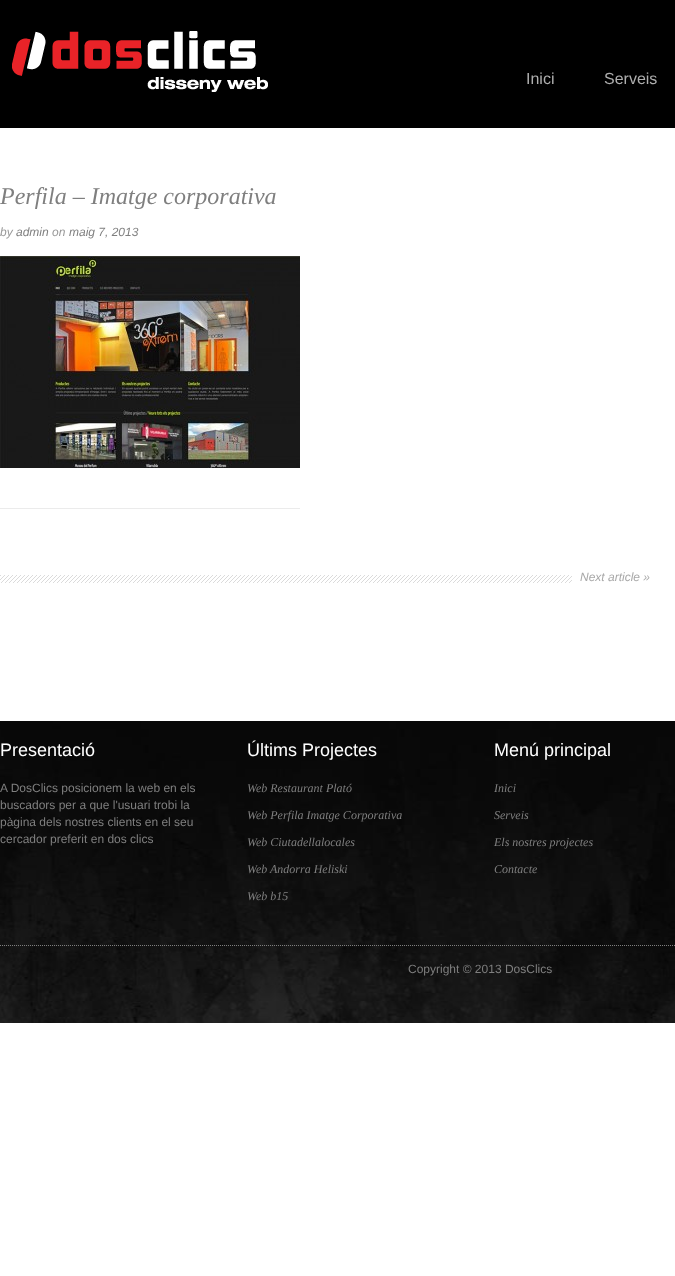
<?xml version="1.0" encoding="UTF-8"?>
<svg xmlns="http://www.w3.org/2000/svg" xmlns:xlink="http://www.w3.org/1999/xlink" width="675" height="1276">
  <rect width="100%" height="100%" fill="#ffffff" />
  <rect width="675" height="128" fill="#000000" />
  <image x="12" y="31" width="256" height="61" xlink:href="image1.png" />
  <rect y="508" width="300" height="1" fill="#ebebeb" />
  <image x="0" y="256" width="300" height="212" xlink:href="image2.png" />
  <image x="0" y="575" width="572" height="8" xlink:href="image3.png" />
  <image x="0" y="721" width="675" height="302" xlink:href="image4.png" />
  <path d="M 0 945.5 h 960" fill="none" stroke="#7f7f7f" stroke-dasharray="1 1" />
  <text x="526" y="84" style="font-family: Liberation Sans; font-size: 16px; fill: #aeaeae">Inici</text>
  <text x="604" y="84" style="font-family: Liberation Sans; font-size: 16px; fill: #aeaeae">Serveis</text>
  <text x="0" y="204" style="font-family: Liberation Serif; font-size: 24px; font-style: italic; fill: #7f7f7f">Perfila – Imatge corporativa</text>
  <text x="0" y="236" style="font-family: Liberation Sans; font-size: 12px; font-style: italic; fill: #999999">by</text>
  <text x="16" y="236" style="font-family: Liberation Sans; font-size: 12px; font-style: italic; fill: #7f7f7f">admin</text>
  <text x="52" y="236" style="font-family: Liberation Sans; font-size: 12px; font-style: italic; fill: #999999">on</text>
  <text x="69" y="236" style="font-family: Liberation Sans; font-size: 12px; font-style: italic; fill: #7f7f7f">maig 7, 2013</text>
  <text x="580" y="581" style="font-family: Liberation Sans; font-size: 12px; font-style: italic; fill: #a8a8a8">Next article »</text>
  <text x="0" y="756" style="font-family: Liberation Sans; font-size: 18px; fill: #ffffff">Presentació</text>
  <text x="0" y="792" style="font-family: Liberation Sans; font-size: 12px; fill: #7f7f7f">A DosClics posicionem la web en els</text>
  <text x="0" y="809" style="font-family: Liberation Sans; font-size: 12px; fill: #7f7f7f">buscadors per a que l'usuari trobi la</text>
  <text x="0" y="826" style="font-family: Liberation Sans; font-size: 12px; fill: #7f7f7f">pàgina dels nostres clients en el seu</text>
  <text x="0" y="843" style="font-family: Liberation Sans; font-size: 12px; fill: #7f7f7f">cercador preferit en dos clics</text>
  <text x="247" y="756" style="font-family: Liberation Sans; font-size: 18px; fill: #ffffff">Últims Projectes</text>
  <text x="247" y="792" style="font-family: Liberation Serif; font-size: 12px; font-style: italic; fill: #7f7f7f">Web Restaurant Plató</text>
  <text x="247" y="819" style="font-family: Liberation Serif; font-size: 12px; font-style: italic; fill: #7f7f7f">Web Perfila Imatge Corporativa</text>
  <text x="247" y="846" style="font-family: Liberation Serif; font-size: 12px; font-style: italic; fill: #7f7f7f">Web Ciutadellalocales</text>
  <text x="247" y="873" style="font-family: Liberation Serif; font-size: 12px; font-style: italic; fill: #7f7f7f">Web Andorra Heliski</text>
  <text x="247" y="900" style="font-family: Liberation Serif; font-size: 12px; font-style: italic; fill: #7f7f7f">Web b15</text>
  <text x="494" y="756" style="font-family: Liberation Sans; font-size: 18px; fill: #ffffff">Menú principal</text>
  <text x="494" y="792" style="font-family: Liberation Serif; font-size: 12px; font-style: italic; fill: #7f7f7f">Inici</text>
  <text x="494" y="819" style="font-family: Liberation Serif; font-size: 12px; font-style: italic; fill: #7f7f7f">Serveis</text>
  <text x="494" y="846" style="font-family: Liberation Serif; font-size: 12px; font-style: italic; fill: #7f7f7f">Els nostres projectes</text>
  <text x="494" y="873" style="font-family: Liberation Serif; font-size: 12px; font-style: italic; fill: #7f7f7f">Contacte</text>
  <text x="408" y="973" style="font-family: Liberation Sans; font-size: 12px; fill: #7f7f7f">Copyright © 2013 DosClics</text>
</svg>
